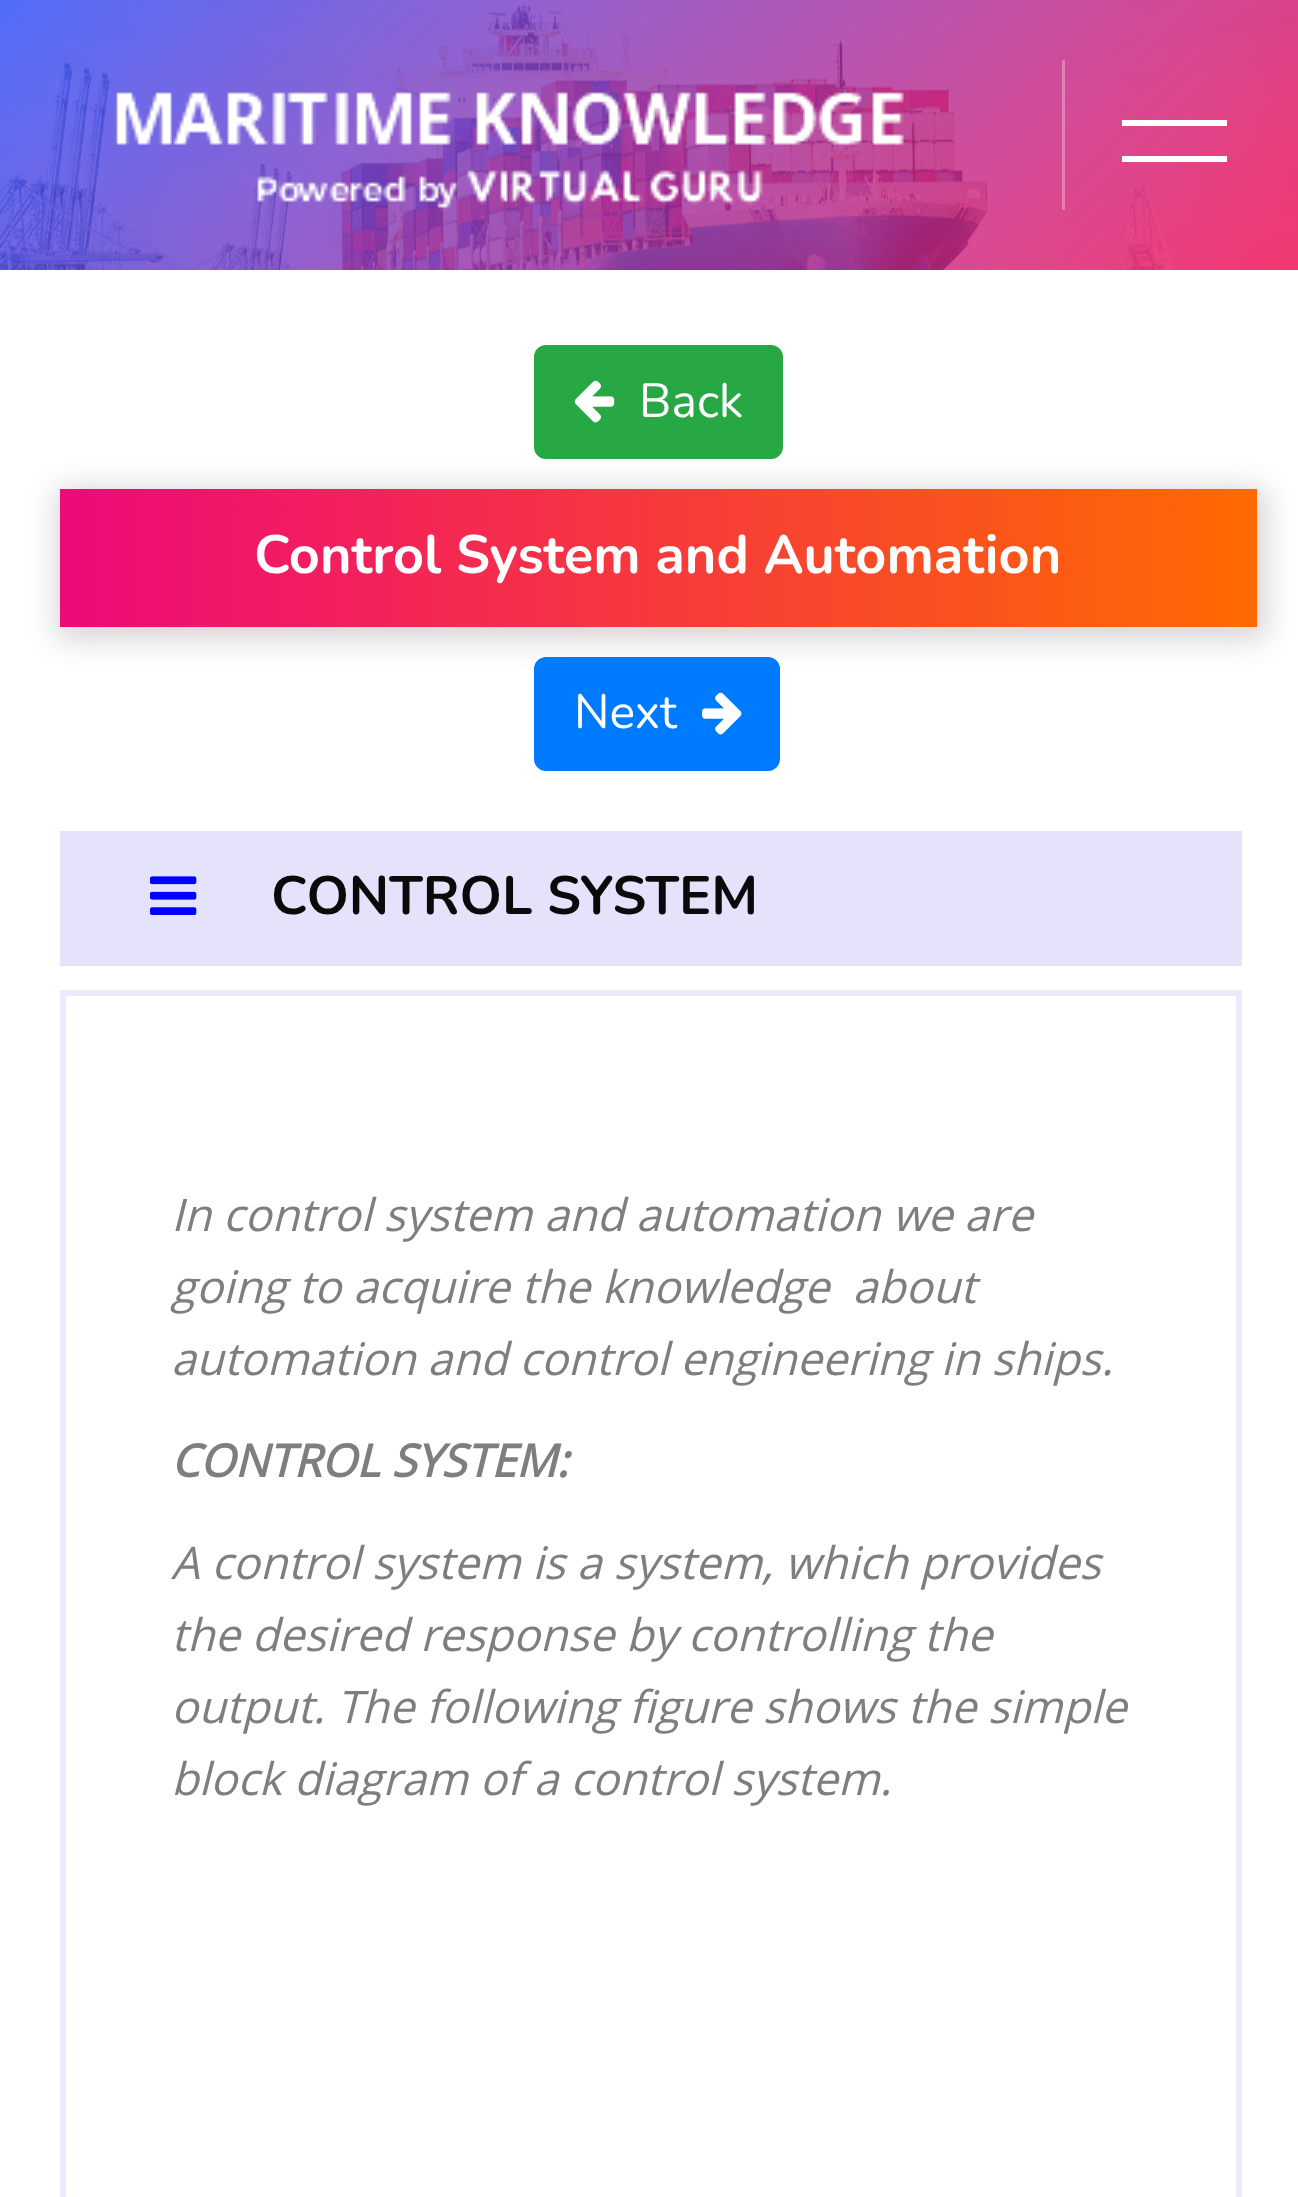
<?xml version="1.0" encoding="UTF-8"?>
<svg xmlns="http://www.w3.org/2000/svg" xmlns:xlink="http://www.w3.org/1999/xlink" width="1298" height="2197">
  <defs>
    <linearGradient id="g1" gradientUnits="userSpaceOnUse" x1="60" y1="558" x2="1257" y2="558"><stop offset="0" stop-color="#ee0979" /><stop offset="1" stop-color="#ff6a00" /></linearGradient>
  </defs>
  <rect width="100%" height="100%" fill="#ffffff" />
  <image x="0" y="0" width="1298" height="270" xlink:href="image1.png" />
  <image x="116" y="92" width="788" height="119" xlink:href="image2.png" />
  <rect x="1062" y="60" width="3" height="150" fill="#ffffff" fill-opacity="0.3" />
  <rect x="1122" y="120" width="105" height="6" fill="#ffffff" />
  <rect x="1122" y="156" width="105" height="6" fill="#ffffff" />
  <rect x="57" y="489" width="1209" height="150" fill="#d5d2d2" filter="blur(15px)" />
  <rect x="535.5" y="346.5" width="246" height="111" rx="10.5" fill="#28a745" stroke="#28a745" stroke-width="3" />
  <image x="574" y="380" width="41" height="43" xlink:href="image3.png" />
  <rect x="60" y="489" width="1197" height="138" fill="url(#g1)" />
  <rect x="535.5" y="658.5" width="243" height="111" rx="10.5" fill="#007bff" stroke="#007bff" stroke-width="3" />
  <image x="702" y="692" width="40" height="43" xlink:href="image4.png" />
  <rect x="60" y="831" width="1182" height="135" fill="#e4e3fb" />
  <image x="150" y="876" width="47" height="39" xlink:href="image5.png" />
  <rect x="63" y="993" width="1176" height="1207" fill="none" stroke="#eaeaff" stroke-width="6" />
  <text x="639" y="417" style="font-family: Nunito; font-size: 48px; fill: #ffffff">Back</text>
  <text x="254" y="573" style="font-family: Nunito; font-size: 54px; font-weight: bold; fill: #ffffff">Control System and Automation</text>
  <text x="574" y="728" style="font-family: Nunito; font-size: 48px; fill: #ffffff">Next</text>
  <text x="271" y="914" style="font-family: Nunito; font-size: 54px; font-weight: bold; fill: #0a0a0a">CONTROL SYSTEM</text>
  <text x="171" y="1231" style="font-family: Open Sans; font-size: 45px; font-style: italic; fill: #7e7e7e">In control system and automation we are</text>
  <text x="171" y="1303" style="font-family: Open Sans; font-size: 45px; font-style: italic; fill: #7e7e7e" xml:space="preserve">going to acquire the knowledge  about</text>
  <text x="171" y="1375" style="font-family: Open Sans; font-size: 45px; font-style: italic; fill: #7e7e7e">automation and control engineering in ships.</text>
  <text x="171" y="1477" style="font-family: Open Sans; font-size: 45px; font-weight: bold; font-style: italic; fill: #7e7e7e">CONTROL SYSTEM:</text>
  <text x="171" y="1579" style="font-family: Open Sans; font-size: 45px; font-style: italic; fill: #7e7e7e">A control system is a system, which provides</text>
  <text x="171" y="1651" style="font-family: Open Sans; font-size: 45px; font-style: italic; fill: #7e7e7e">the desired response by controlling the</text>
  <text x="171" y="1723" style="font-family: Open Sans; font-size: 45px; font-style: italic; fill: #7e7e7e">output. The following figure shows the simple</text>
  <text x="171" y="1795" style="font-family: Open Sans; font-size: 45px; font-style: italic; fill: #7e7e7e">block diagram of a control system.</text>
</svg>
